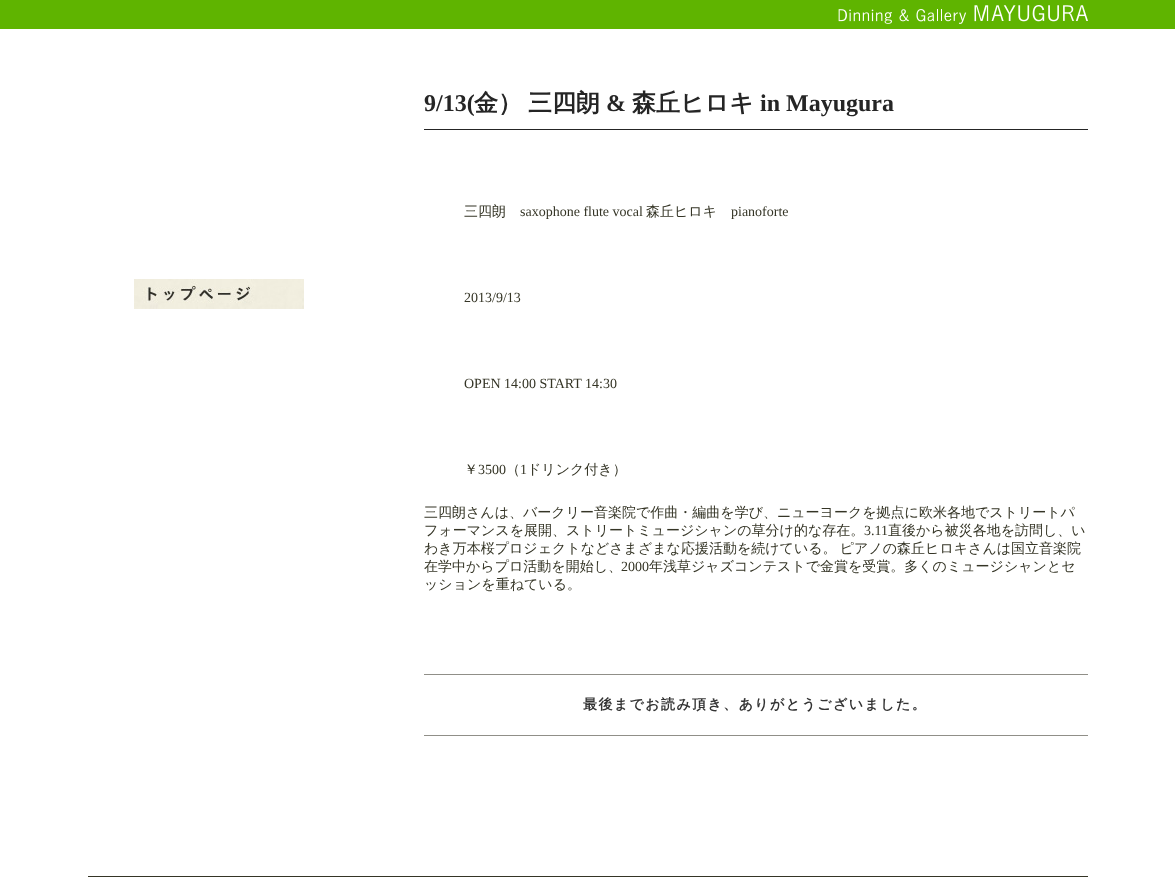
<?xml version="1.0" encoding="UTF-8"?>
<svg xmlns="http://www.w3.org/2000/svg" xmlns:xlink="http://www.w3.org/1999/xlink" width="1175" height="877">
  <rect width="100%" height="100%" fill="#ffffff" />
  <rect width="1175" height="29" fill="#5fb400" />
  <image x="838" y="5" width="250" height="19" xlink:href="image1.png" />
  <image x="134" y="279" width="170" height="30" xlink:href="image2.png" />
  <rect x="424" y="129" width="664" height="1" fill="#252525" />
  <rect x="424" y="674" width="664" height="1" fill="#908f88" />
  <rect x="424" y="735" width="664" height="1" fill="#908f88" />
  <rect x="88" y="876" width="1000" height="1" fill="#353526" />
  <text x="424" y="111" style="font-family: Liberation Serif; font-size: 24px; font-weight: bold; fill: #252525">9/13(</text>
  <text x="474" y="111" style="font-family: WenQuanYi Zen Hei; font-size: 24px; font-weight: bold; fill: #252525">金）</text>
  <text x="528" y="111" style="font-family: WenQuanYi Zen Hei; font-size: 24px; font-weight: bold; fill: #252525">三四朗</text>
  <text x="606" y="111" style="font-family: Liberation Serif; font-size: 24px; font-weight: bold; fill: #252525">&amp;</text>
  <text x="632" y="111" style="font-family: WenQuanYi Zen Hei; font-size: 24px; font-weight: bold; fill: #252525">森丘ヒロキ</text>
  <text x="760" y="111" style="font-family: Liberation Serif; font-size: 24px; font-weight: bold; fill: #252525">in Mayugura</text>
  <text x="464" y="216" style="font-family: WenQuanYi Zen Hei; font-size: 14px; font-weight: 500; fill: #353526">三四朗</text>
  <text x="520" y="216" style="font-family: Liberation Serif; font-size: 14px; fill: #353526">saxophone flute vocal</text>
  <text x="646" y="216" style="font-family: WenQuanYi Zen Hei; font-size: 14px; font-weight: 500; fill: #353526">森丘ヒロキ</text>
  <text x="731" y="216" style="font-family: Liberation Serif; font-size: 14px; fill: #353526">pianoforte</text>
  <text x="464" y="302" style="font-family: Liberation Serif; font-size: 14px; fill: #353526">2013/9/13</text>
  <text x="464" y="388" style="font-family: Liberation Serif; font-size: 14px; fill: #353526">OPEN 14:00 START 14:30</text>
  <text x="464" y="474" style="font-family: WenQuanYi Zen Hei; font-size: 14px; font-weight: 500; fill: #353526">￥</text>
  <text x="478" y="474" style="font-family: Liberation Serif; font-size: 14px; fill: #353526">3500</text>
  <text x="506" y="474" style="font-family: WenQuanYi Zen Hei; font-size: 14px; font-weight: 500; fill: #353526">（</text>
  <text x="520" y="474" style="font-family: Liberation Serif; font-size: 14px; fill: #353526">1</text>
  <text x="527" y="474" style="font-family: WenQuanYi Zen Hei; font-size: 14px; font-weight: 500; fill: #353526">ドリンク付き）</text>
  <text x="424" y="517" style="font-family: WenQuanYi Zen Hei; font-size: 14px; font-weight: 500; fill: #353526">三四朗さんは、バークリー音楽院で作曲・編曲を学び、ニューヨークを拠点に欧米各地でストリートパ</text>
  <text x="424" y="535" style="font-family: WenQuanYi Zen Hei; font-size: 14px; font-weight: 500; fill: #353526">フォーマンスを展開、ストリートミュージシャンの草分け的な存在。</text>
  <text x="864" y="535" style="font-family: Liberation Serif; font-size: 14px; fill: #353526">3.11</text>
  <text x="888" y="535" style="font-family: WenQuanYi Zen Hei; font-size: 14px; font-weight: 500; fill: #353526">直後から被災各地を訪問し、い</text>
  <text x="424" y="553" word-spacing="-1" style="font-family: WenQuanYi Zen Hei; font-size: 14px; font-weight: 500; fill: #353526">わき万本桜プロジェクトなどさまざまな応援活動を続けている。 ピアノの森丘ヒロキさんは国立音楽院</text>
  <text x="424" y="571" style="font-family: WenQuanYi Zen Hei; font-size: 14px; font-weight: 500; fill: #353526">在学中からプロ活動を開始し、</text>
  <text x="621" y="571" style="font-family: Liberation Serif; font-size: 14px; fill: #353526">2000</text>
  <text x="649" y="571" style="font-family: WenQuanYi Zen Hei; font-size: 14px; font-weight: 500; fill: #353526">年浅草ジャズコンテストで金賞を受賞。多くのミュージシャンとセ</text>
  <text x="424" y="589" style="font-family: WenQuanYi Zen Hei; font-size: 14px; font-weight: 500; fill: #353526">ッションを重ねている。</text>
  <text x="583" y="709" style="font-family: WenQuanYi Zen Hei; font-size: 14px; font-weight: bold; letter-spacing: 1.4px; fill: #333333">最後までお読み頂き、ありがとうございました。</text>
</svg>
